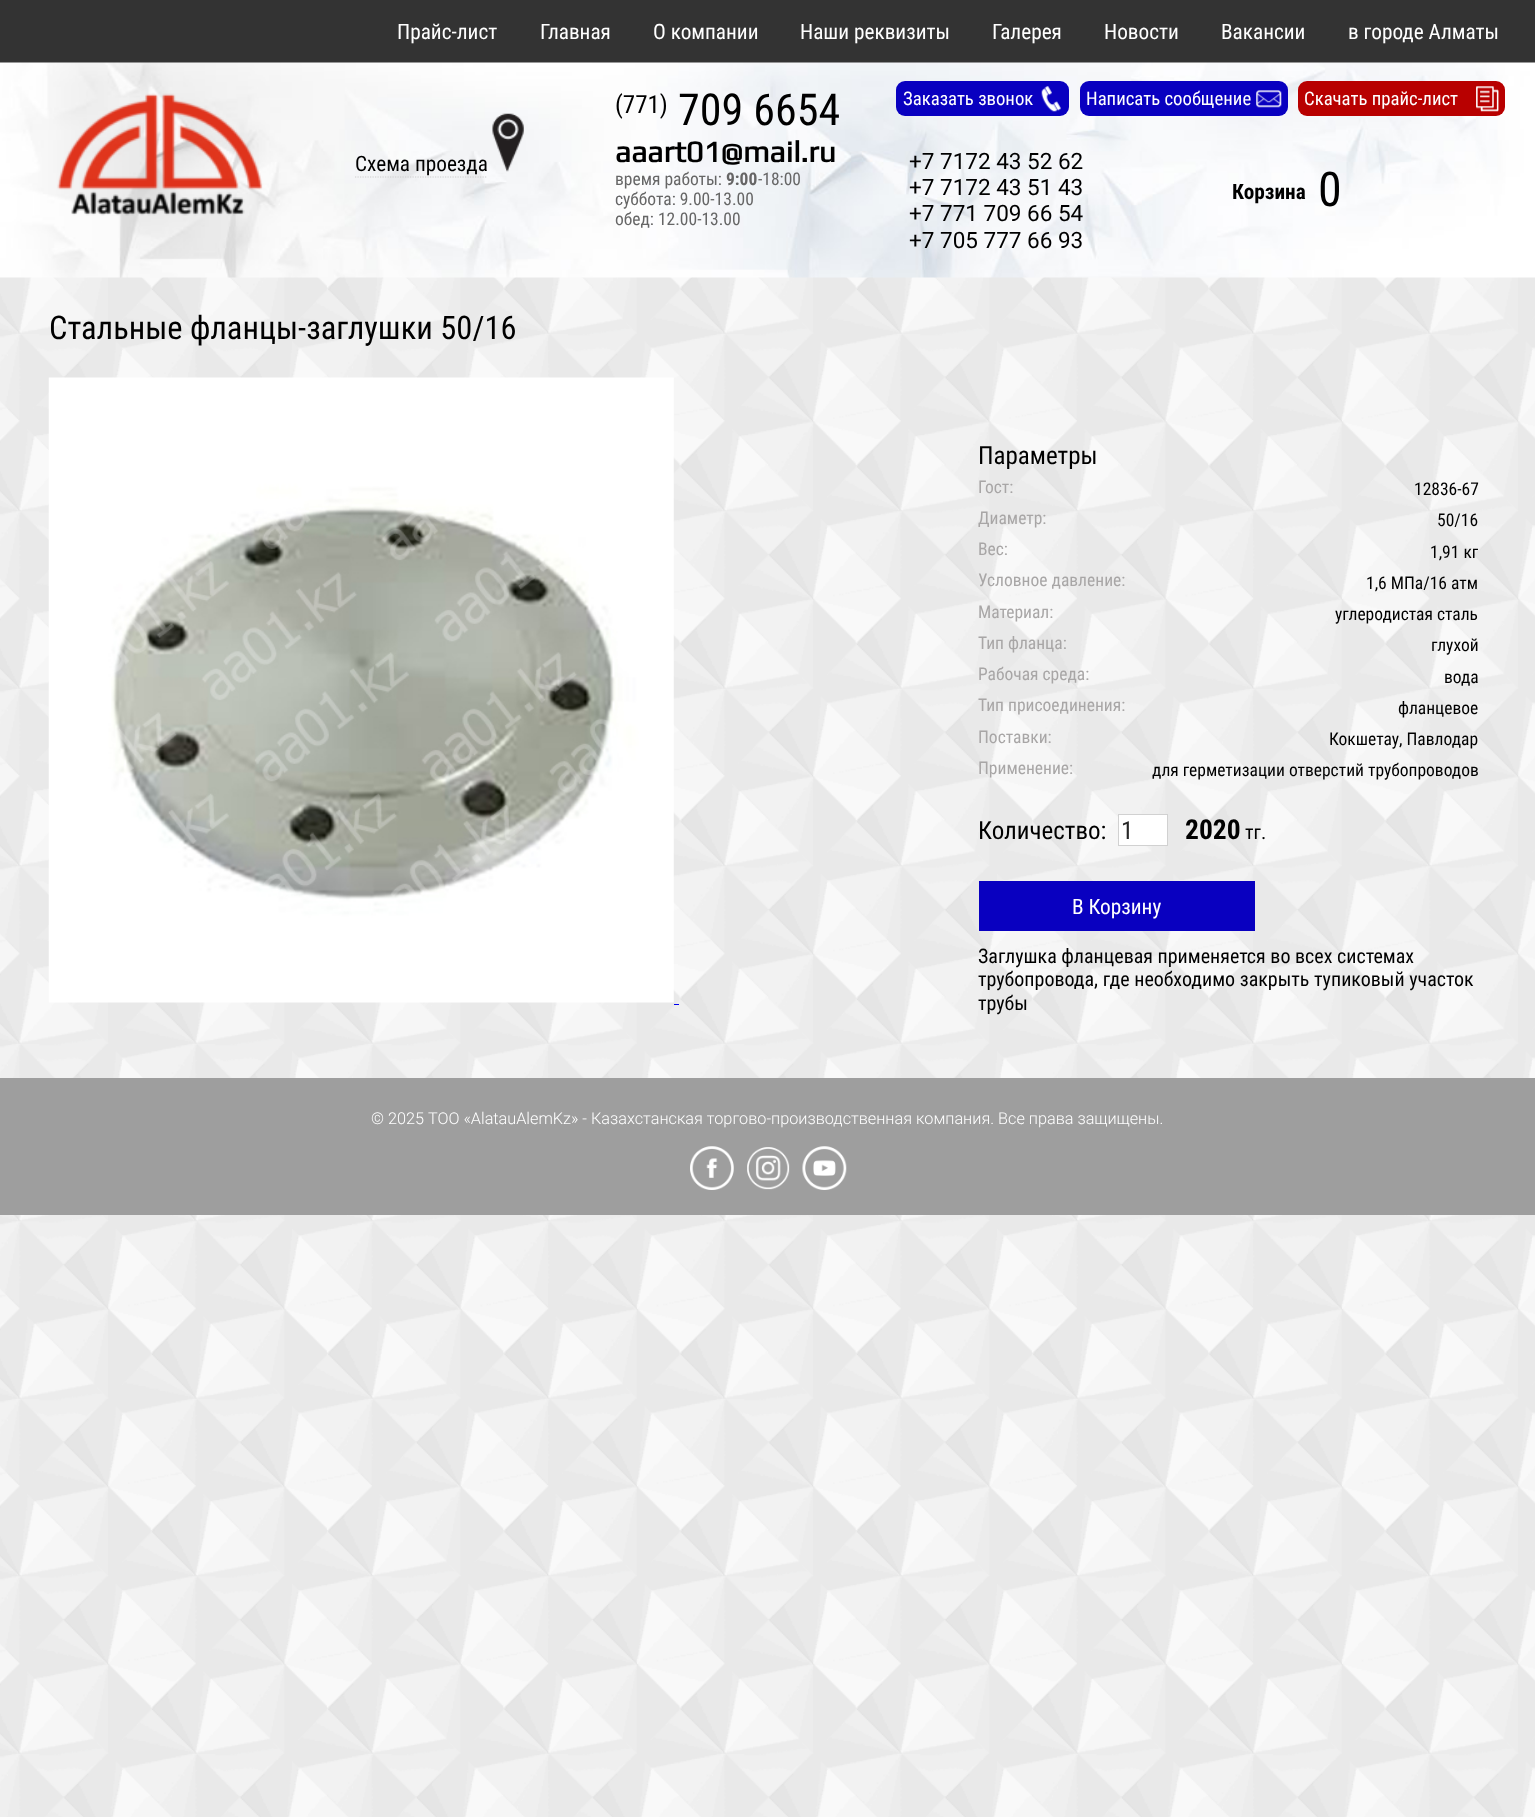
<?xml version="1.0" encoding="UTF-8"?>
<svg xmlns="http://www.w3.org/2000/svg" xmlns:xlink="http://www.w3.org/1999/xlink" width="1535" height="1817">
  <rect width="100%" height="100%" fill="#ffffff" />
  <image x="0" y="277" width="1535" height="1540" xlink:href="image1.png" />
  <rect width="1535" height="63" fill="#333333" />
  <image x="0" y="62" width="1535" height="216" xlink:href="image2.png" />
  <image x="57" y="93" width="206" height="123" xlink:href="image3.png" />
  <path d="M 355 177 h 132.5" fill="none" stroke="#cccccc" stroke-width="1.2" stroke-dasharray="1.25 1.25" />
  <image x="492" y="113" width="32" height="59" xlink:href="image4.png" />
  <rect x="896" y="81" width="173" height="35" rx="9" fill="#0900c0" />
  <image x="1041" y="86" width="20" height="26" xlink:href="image5.png" />
  <rect x="1080" y="81" width="208" height="35" rx="9" fill="#0900c0" />
  <image x="1256" y="90" width="26" height="18" xlink:href="image6.png" />
  <rect x="1298" y="81" width="207" height="35" rx="9" fill="#b80000" />
  <image x="1476" y="86" width="23" height="26" xlink:href="image7.png" />
  <image x="48" y="377" width="626" height="626" xlink:href="image8.png" />
  <rect x="674" y="1004" width="5" height="1" fill="#0000ee" />
  <rect x="1118.5" y="814.5" width="49" height="31" fill="#ffffff" stroke="#d1d1d1" />
  <rect x="979" y="881" width="276" height="50" fill="#0900c0" />
  <rect y="1078" width="1535" height="137" fill="#9e9e9e" />
  <image x="690" y="1146" width="44" height="44" xlink:href="image9.png" />
  <image x="747" y="1147" width="43" height="43" xlink:href="image10.png" />
  <image x="802" y="1146" width="45" height="44" xlink:href="image11.png" />
  <text x="397" y="39" style="font-family: Roboto Condensed; font-size: 21.25px; fill: #ffffff">Прайс-лист</text>
  <text x="540" y="39" style="font-family: Roboto Condensed; font-size: 21.25px; fill: #ffffff">Главная</text>
  <text x="653" y="39" style="font-family: Roboto Condensed; font-size: 21.25px; fill: #ffffff">О компании</text>
  <text x="800" y="39" style="font-family: Roboto Condensed; font-size: 21.25px; fill: #ffffff">Наши реквизиты</text>
  <text x="992" y="39" style="font-family: Roboto Condensed; font-size: 21.25px; fill: #ffffff">Галерея</text>
  <text x="1104" y="39" style="font-family: Roboto Condensed; font-size: 21.25px; fill: #ffffff">Новости</text>
  <text x="1221" y="39" style="font-family: Roboto Condensed; font-size: 21.25px; fill: #ffffff">Вакансии</text>
  <text x="1348" y="39" style="font-family: Roboto Condensed; font-size: 21.25px; fill: #ffffff">в городе Алматы</text>
  <text x="355" y="171" style="font-family: Roboto Condensed; font-size: 21.25px; fill: #000000">Схема проезда</text>
  <text x="615" y="113" style="font-family: Roboto Condensed; font-size: 25px; fill: #000000">(771)</text>
  <text x="678" y="125" style="font-family: Roboto Condensed; font-size: 44px; fill: #000000">709 6654</text>
  <text x="615" y="162" style="font-family: Play; font-size: 30px; font-weight: bold; fill: #000000">aaart01@mail.ru</text>
  <text x="615" y="185" style="font-family: Roboto Condensed; font-size: 17.5px; fill: #666666">время работы:</text>
  <text x="726" y="185" style="font-family: Roboto Condensed; font-size: 17.5px; font-weight: bold; fill: #666666">9:00</text>
  <text x="758" y="185" style="font-family: Roboto Condensed; font-size: 17.5px; fill: #666666">-18:00</text>
  <text x="615" y="205" style="font-family: Roboto Condensed; font-size: 17.5px; fill: #666666">суббота: 9.00-13.00</text>
  <text x="615" y="225" style="font-family: Roboto Condensed; font-size: 17.5px; fill: #666666">обед: 12.00-13.00</text>
  <text x="903" y="105" style="font-family: Roboto Condensed; font-size: 18.75px; fill: #ffffff">Заказать звонок</text>
  <text x="1086" y="105" style="font-family: Roboto Condensed; font-size: 18.75px; fill: #ffffff">Написать сообщение</text>
  <text x="1304" y="105" style="font-family: Roboto Condensed; font-size: 18.75px; fill: #ffffff">Скачать прайс-лист</text>
  <text x="909" y="169" style="font-family: Roboto; font-size: 22.5px; fill: #000000">+7 7172 43 52 62</text>
  <text x="909" y="195" style="font-family: Roboto; font-size: 22.5px; fill: #000000">+7 7172 43 51 43</text>
  <text x="909" y="221" style="font-family: Roboto; font-size: 22.5px; fill: #000000">+7 771 709 66 54</text>
  <text x="909" y="248" style="font-family: Roboto; font-size: 22.5px; fill: #000000">+7 705 777 66 93</text>
  <text x="1232" y="199" style="font-family: Roboto Condensed; font-size: 21.25px; font-weight: bold; fill: #000000">Корзина</text>
  <text x="1318" y="206" style="font-family: Roboto Condensed; font-size: 48px; fill: #000000">0</text>
  <text x="49" y="339" style="font-family: Roboto Condensed; font-size: 32.5px; fill: #000000">Стальные фланцы-заглушки 50/16</text>
  <text x="978" y="464" style="font-family: Roboto Condensed; font-size: 25px; fill: #000000">Параметры</text>
  <text x="978" y="493" style="font-family: Roboto Condensed; font-size: 17.5px; fill: #a8a6a6">Гост:</text>
  <text x="1414" y="495" style="font-family: Roboto Condensed; font-size: 17.5px; fill: #000000">12836-67</text>
  <text x="978" y="524" style="font-family: Roboto Condensed; font-size: 17.5px; fill: #a8a6a6">Диаметр:</text>
  <text x="1437" y="526" style="font-family: Roboto Condensed; font-size: 17.5px; fill: #000000">50/16</text>
  <text x="978" y="555" style="font-family: Roboto Condensed; font-size: 17.5px; fill: #a8a6a6">Вес:</text>
  <text x="1430" y="558" style="font-family: Roboto Condensed; font-size: 17.5px; fill: #000000">1,91 кг</text>
  <text x="978" y="586" style="font-family: Roboto Condensed; font-size: 17.5px; fill: #a8a6a6">Условное давление:</text>
  <text x="1366" y="589" style="font-family: Roboto Condensed; font-size: 17.5px; fill: #000000">1,6 МПа/16 атм</text>
  <text x="978" y="618" style="font-family: Roboto Condensed; font-size: 17.5px; fill: #a8a6a6">Материал:</text>
  <text x="1335" y="620" style="font-family: Roboto Condensed; font-size: 17.5px; fill: #000000">углеродистая сталь</text>
  <text x="978" y="649" style="font-family: Roboto Condensed; font-size: 17.5px; fill: #a8a6a6">Тип фланца:</text>
  <text x="1431" y="651" style="font-family: Roboto Condensed; font-size: 17.5px; fill: #000000">глухой</text>
  <text x="978" y="680" style="font-family: Roboto Condensed; font-size: 17.5px; fill: #a8a6a6">Рабочая среда:</text>
  <text x="1444" y="683" style="font-family: Roboto Condensed; font-size: 17.5px; fill: #000000">вода</text>
  <text x="978" y="711" style="font-family: Roboto Condensed; font-size: 17.5px; fill: #a8a6a6">Тип присоединения:</text>
  <text x="1398" y="714" style="font-family: Roboto Condensed; font-size: 17.5px; fill: #000000">фланцевое</text>
  <text x="978" y="743" style="font-family: Roboto Condensed; font-size: 17.5px; fill: #a8a6a6">Поставки:</text>
  <text x="1329" y="745" style="font-family: Roboto Condensed; font-size: 17.5px; fill: #000000">Кокшетау, Павлодар</text>
  <text x="978" y="774" style="font-family: Roboto Condensed; font-size: 17.5px; fill: #a8a6a6">Применение:</text>
  <text x="1152" y="776" style="font-family: Roboto Condensed; font-size: 17.5px; fill: #000000">для герметизации отверстий трубопроводов</text>
  <text x="978" y="839" style="font-family: Roboto Condensed; font-size: 25px; fill: #000000">Количество:</text>
  <text x="1121" y="839" style="font-family: Roboto Condensed; font-size: 25px; fill: #272727">1</text>
  <text x="1185" y="839" style="font-family: Roboto Condensed; font-size: 27.5px; font-weight: bold; fill: #000000">2020</text>
  <text x="1245" y="839" style="font-family: Roboto Condensed; font-size: 20px; fill: #000000">тг.</text>
  <text x="1072" y="914" style="font-family: Roboto Condensed; font-size: 21.25px; fill: #ffffff">В Корзину</text>
  <text x="978" y="963" style="font-family: Roboto Condensed; font-size: 20px; fill: #000000">Заглушка фланцевая применяется во всех системах</text>
  <text x="978" y="986" style="font-family: Roboto Condensed; font-size: 20px; fill: #000000">трубопровода, где необходимо закрыть тупиковый участок</text>
  <text x="978" y="1010" style="font-family: Roboto Condensed; font-size: 20px; fill: #000000">трубы</text>
  <text x="371" y="1124" style="font-family: Roboto; font-size: 16.25px; font-weight: 300; fill: #ffffff">© 2025 ТОО «AlatauAlemKz» - Казахстанская торгово-производственная компания. Все права защищены.</text>
</svg>
